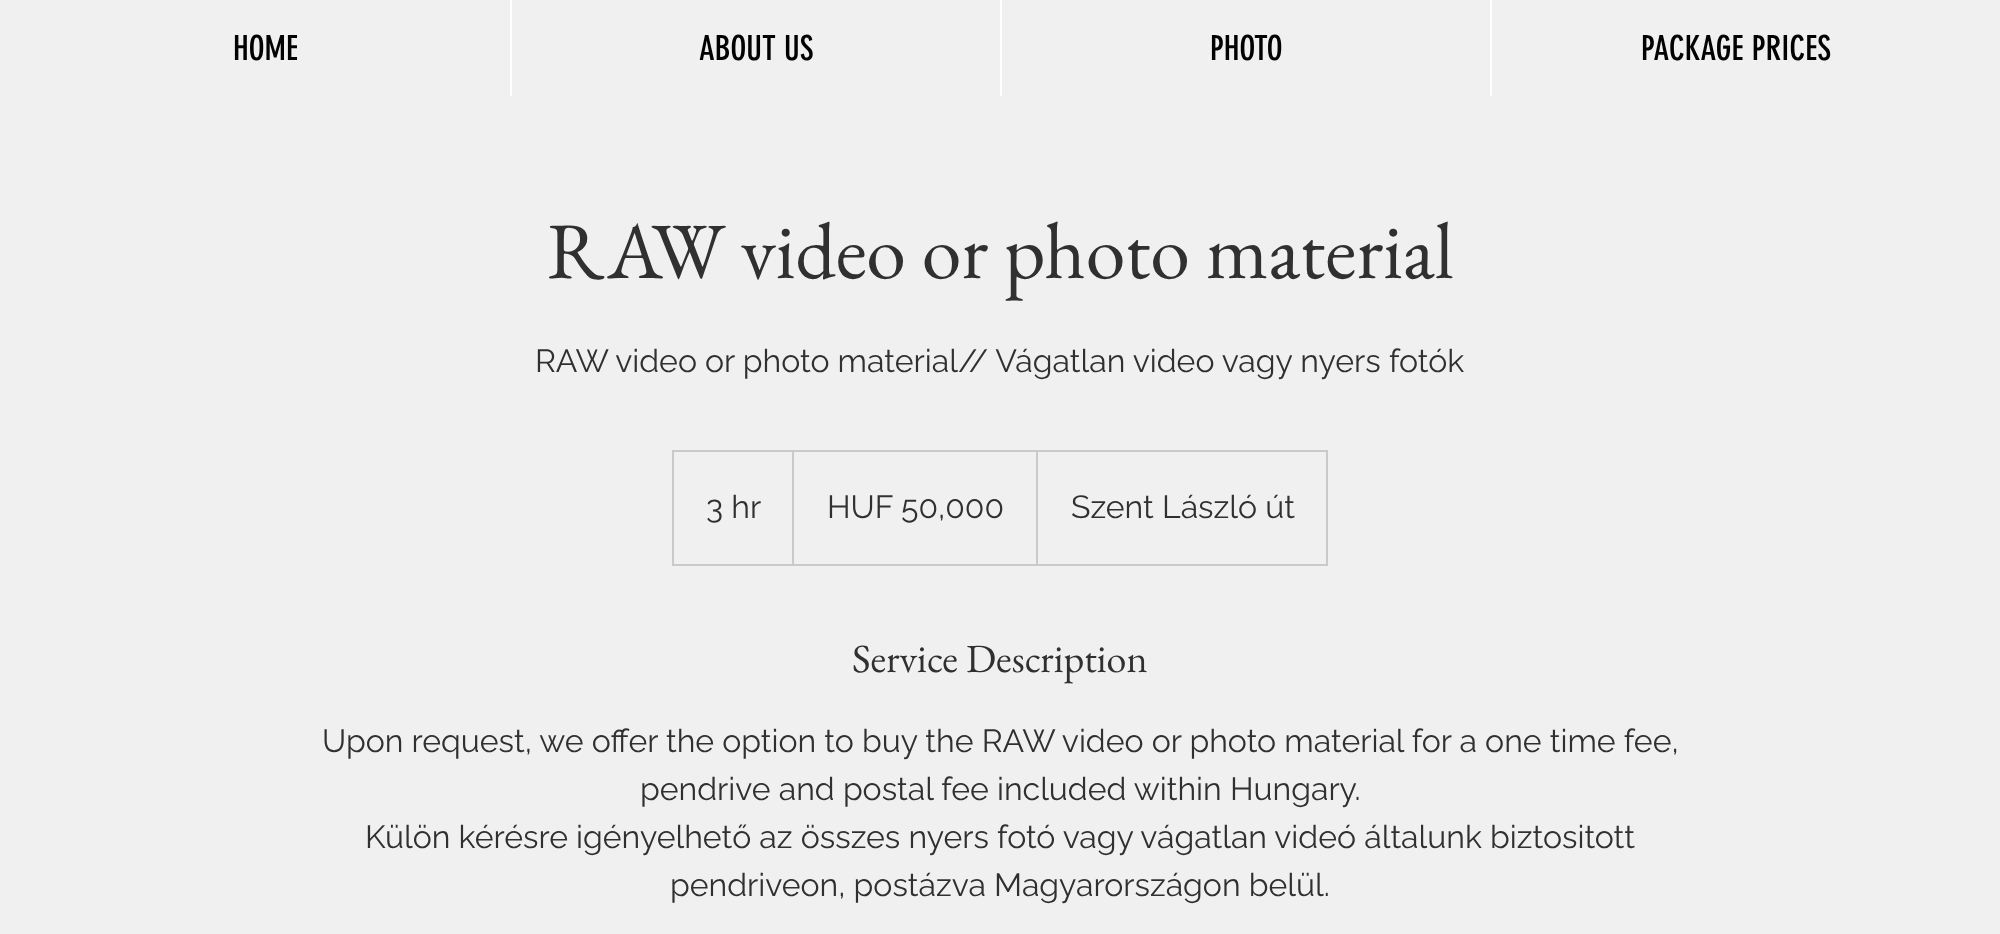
<?xml version="1.0" encoding="UTF-8"?>
<svg xmlns="http://www.w3.org/2000/svg" xmlns:xlink="http://www.w3.org/1999/xlink" width="2000" height="934">
  <defs>
    <clipPath id="clip1"><rect x="674" y="452" width="652" height="112" /></clipPath>
  </defs>
  <rect width="100%" height="100%" fill="#f0f0f0" />
  <rect x="510" width="2" height="96" fill="#ffffff" />
  <rect x="1000" width="2" height="96" fill="#ffffff" />
  <rect x="1490" width="2" height="96" fill="#ffffff" />
  <rect x="673" y="451" width="654" height="114" fill="none" stroke="#cacaca" stroke-width="2" />
  <g clip-path="url(#clip1)">
    <path d="M 792 564 v -114 l 2 2 v 112 z" fill="#cacaca" />
    <path d="M 1036 564 v -114 l 2 2 v 112 z" fill="#cacaca" />
  </g>
  <text x="233" y="60" style="font-family: 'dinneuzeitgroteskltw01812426'; font-size: 34px; fill: #000000">HOME</text>
  <text x="699" y="60" style="font-family: 'dinneuzeitgroteskltw01812426'; font-size: 34px; fill: #000000">ABOUT US</text>
  <text x="1210" y="60" style="font-family: 'dinneuzeitgroteskltw01812426'; font-size: 34px; fill: #000000">PHOTO</text>
  <text x="1641" y="60" style="font-family: 'dinneuzeitgroteskltw01812426'; font-size: 34px; fill: #000000">PACKAGE PRICES</text>
  <text x="547" y="278" style="font-family: EB Garamond; font-size: 80px; fill: #303030">RAW video or photo material</text>
  <text x="535" y="372" style="font-family: Raleway; font-size: 32px; fill: #303030">RAW video or photo material// Vágatlan video vagy nyers fotók</text>
  <text x="706" y="518" style="font-family: Raleway; font-size: 32px; fill: #303030">3 hr</text>
  <text x="827" y="518" style="font-family: Raleway; font-size: 32px; fill: #303030">HUF 50,000</text>
  <text x="1071" y="518" style="font-family: Raleway; font-size: 32px; fill: #303030">Szent László út</text>
  <text x="852" y="672" style="font-family: EB Garamond; font-size: 40px; fill: #303030">Service Description</text>
  <text x="322" y="752" style="font-family: Raleway; font-size: 32px; fill: #303030">Upon request, we offer the option to buy the RAW video or photo material for a one time fee,</text>
  <text x="640" y="800" style="font-family: Raleway; font-size: 32px; fill: #303030">pendrive and postal fee included within Hungary.</text>
  <text x="365" y="848" style="font-family: Raleway; font-size: 32px; fill: #303030">Külön kérésre igényelhető az összes nyers fotó vagy vágatlan videó általunk biztositott</text>
  <text x="670" y="896" style="font-family: Raleway; font-size: 32px; fill: #303030">pendriveon, postázva Magyarországon belül.</text>
</svg>
